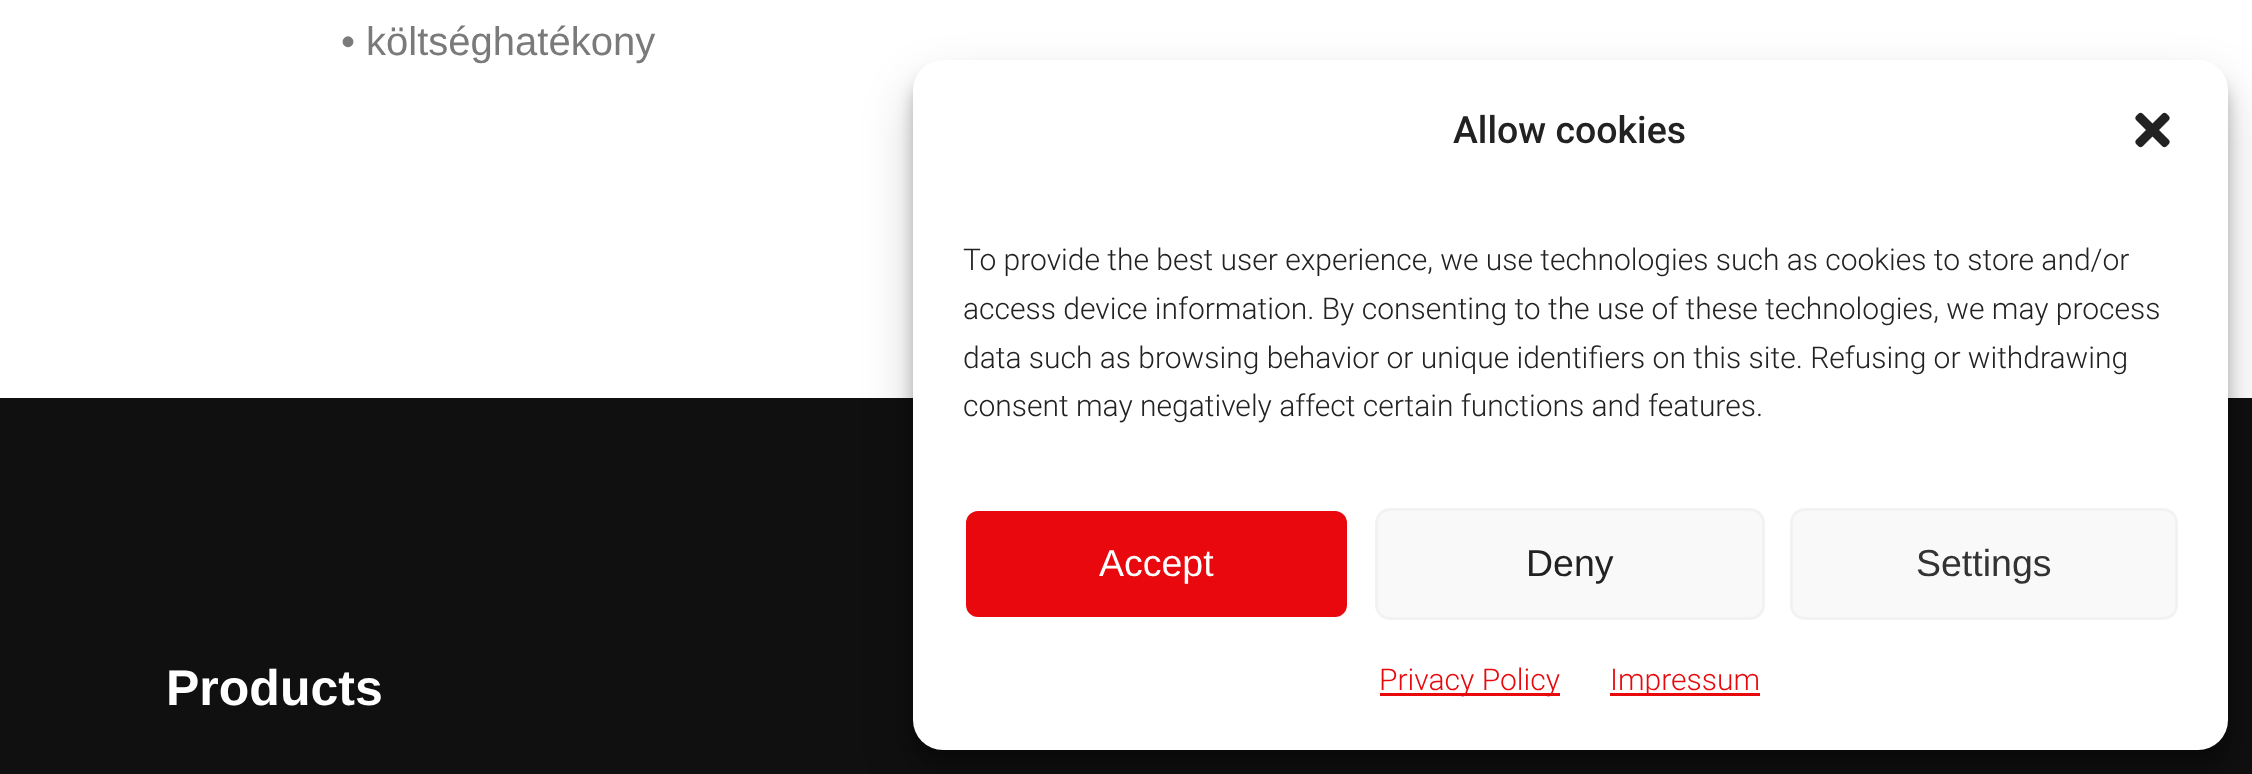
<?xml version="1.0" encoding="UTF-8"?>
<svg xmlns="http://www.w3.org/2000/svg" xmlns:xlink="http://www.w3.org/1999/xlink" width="2252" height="774">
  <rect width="100%" height="100%" fill="#ffffff" />
  <rect y="398" width="2252" height="376" fill="#101010" />
  <rect x="913" y="75" width="1315" height="690" rx="30" fill="#000000" fill-opacity="0.23" filter="blur(7.5px)" />
  <rect x="913" y="85" width="1315" height="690" rx="30" fill="#000000" fill-opacity="0.19" filter="blur(25px)" />
  <rect x="913" y="60" width="1315" height="690" rx="30" fill="#ffffff" />
  <image x="2135" y="112" width="35" height="36" xlink:href="image1.png" />
  <rect x="964.5" y="509.5" width="384" height="109" rx="13.5" fill="#e8080d" stroke="#ffffff" stroke-width="3" />
  <rect x="1376.5" y="509.5" width="387" height="109" rx="13.5" fill="#f9f9f9" stroke="#f2f2f2" stroke-width="3" />
  <rect x="1791.5" y="509.5" width="385" height="109" rx="13.5" fill="#f9f9f9" stroke="#f2f2f2" stroke-width="3" />
  <rect x="1380" y="693" width="180" height="3" fill="#e8090c" />
  <rect x="1610" y="693" width="150" height="3" fill="#e8090c" />
  <text x="341" y="55" style="font-family: Liberation Sans; font-size: 40px; fill: #7a7a7a">• költséghatékony</text>
  <text x="166" y="705" style="font-family: Liberation Sans; font-size: 50px; font-weight: bold; fill: #ffffff">Products</text>
  <text x="1453" y="143" style="font-family: Roboto; font-size: 37.5px; font-weight: 500; fill: #222222">Allow cookies</text>
  <text x="963" y="270" style="font-family: Roboto; font-size: 30px; font-weight: 300; fill: #222222">To provide the best user experience, we use technologies such as cookies to store and/or</text>
  <text x="963" y="319" style="font-family: Roboto; font-size: 30px; font-weight: 300; fill: #222222">access device information. By consenting to the use of these technologies, we may process</text>
  <text x="963" y="368" style="font-family: Roboto; font-size: 30px; font-weight: 300; fill: #222222">data such as browsing behavior or unique identifiers on this site. Refusing or withdrawing</text>
  <text x="963" y="416" style="font-family: Roboto; font-size: 30px; font-weight: 300; fill: #222222">consent may negatively affect certain functions and features.</text>
  <text x="1099" y="576" style="font-family: Liberation Sans; font-size: 37.5px; fill: #ffffff">Accept</text>
  <text x="1526" y="576" style="font-family: Liberation Sans; font-size: 37.5px; fill: #222222">Deny</text>
  <text x="1916" y="576" style="font-family: Liberation Sans; font-size: 37.5px; fill: #333333">Settings</text>
  <text x="1379" y="690" style="font-family: Roboto; font-size: 30px; font-weight: 300; fill: #e8090c">Privacy Policy</text>
  <text x="1610" y="690" style="font-family: Roboto; font-size: 30px; font-weight: 300; fill: #e8090c">Impressum</text>
</svg>
